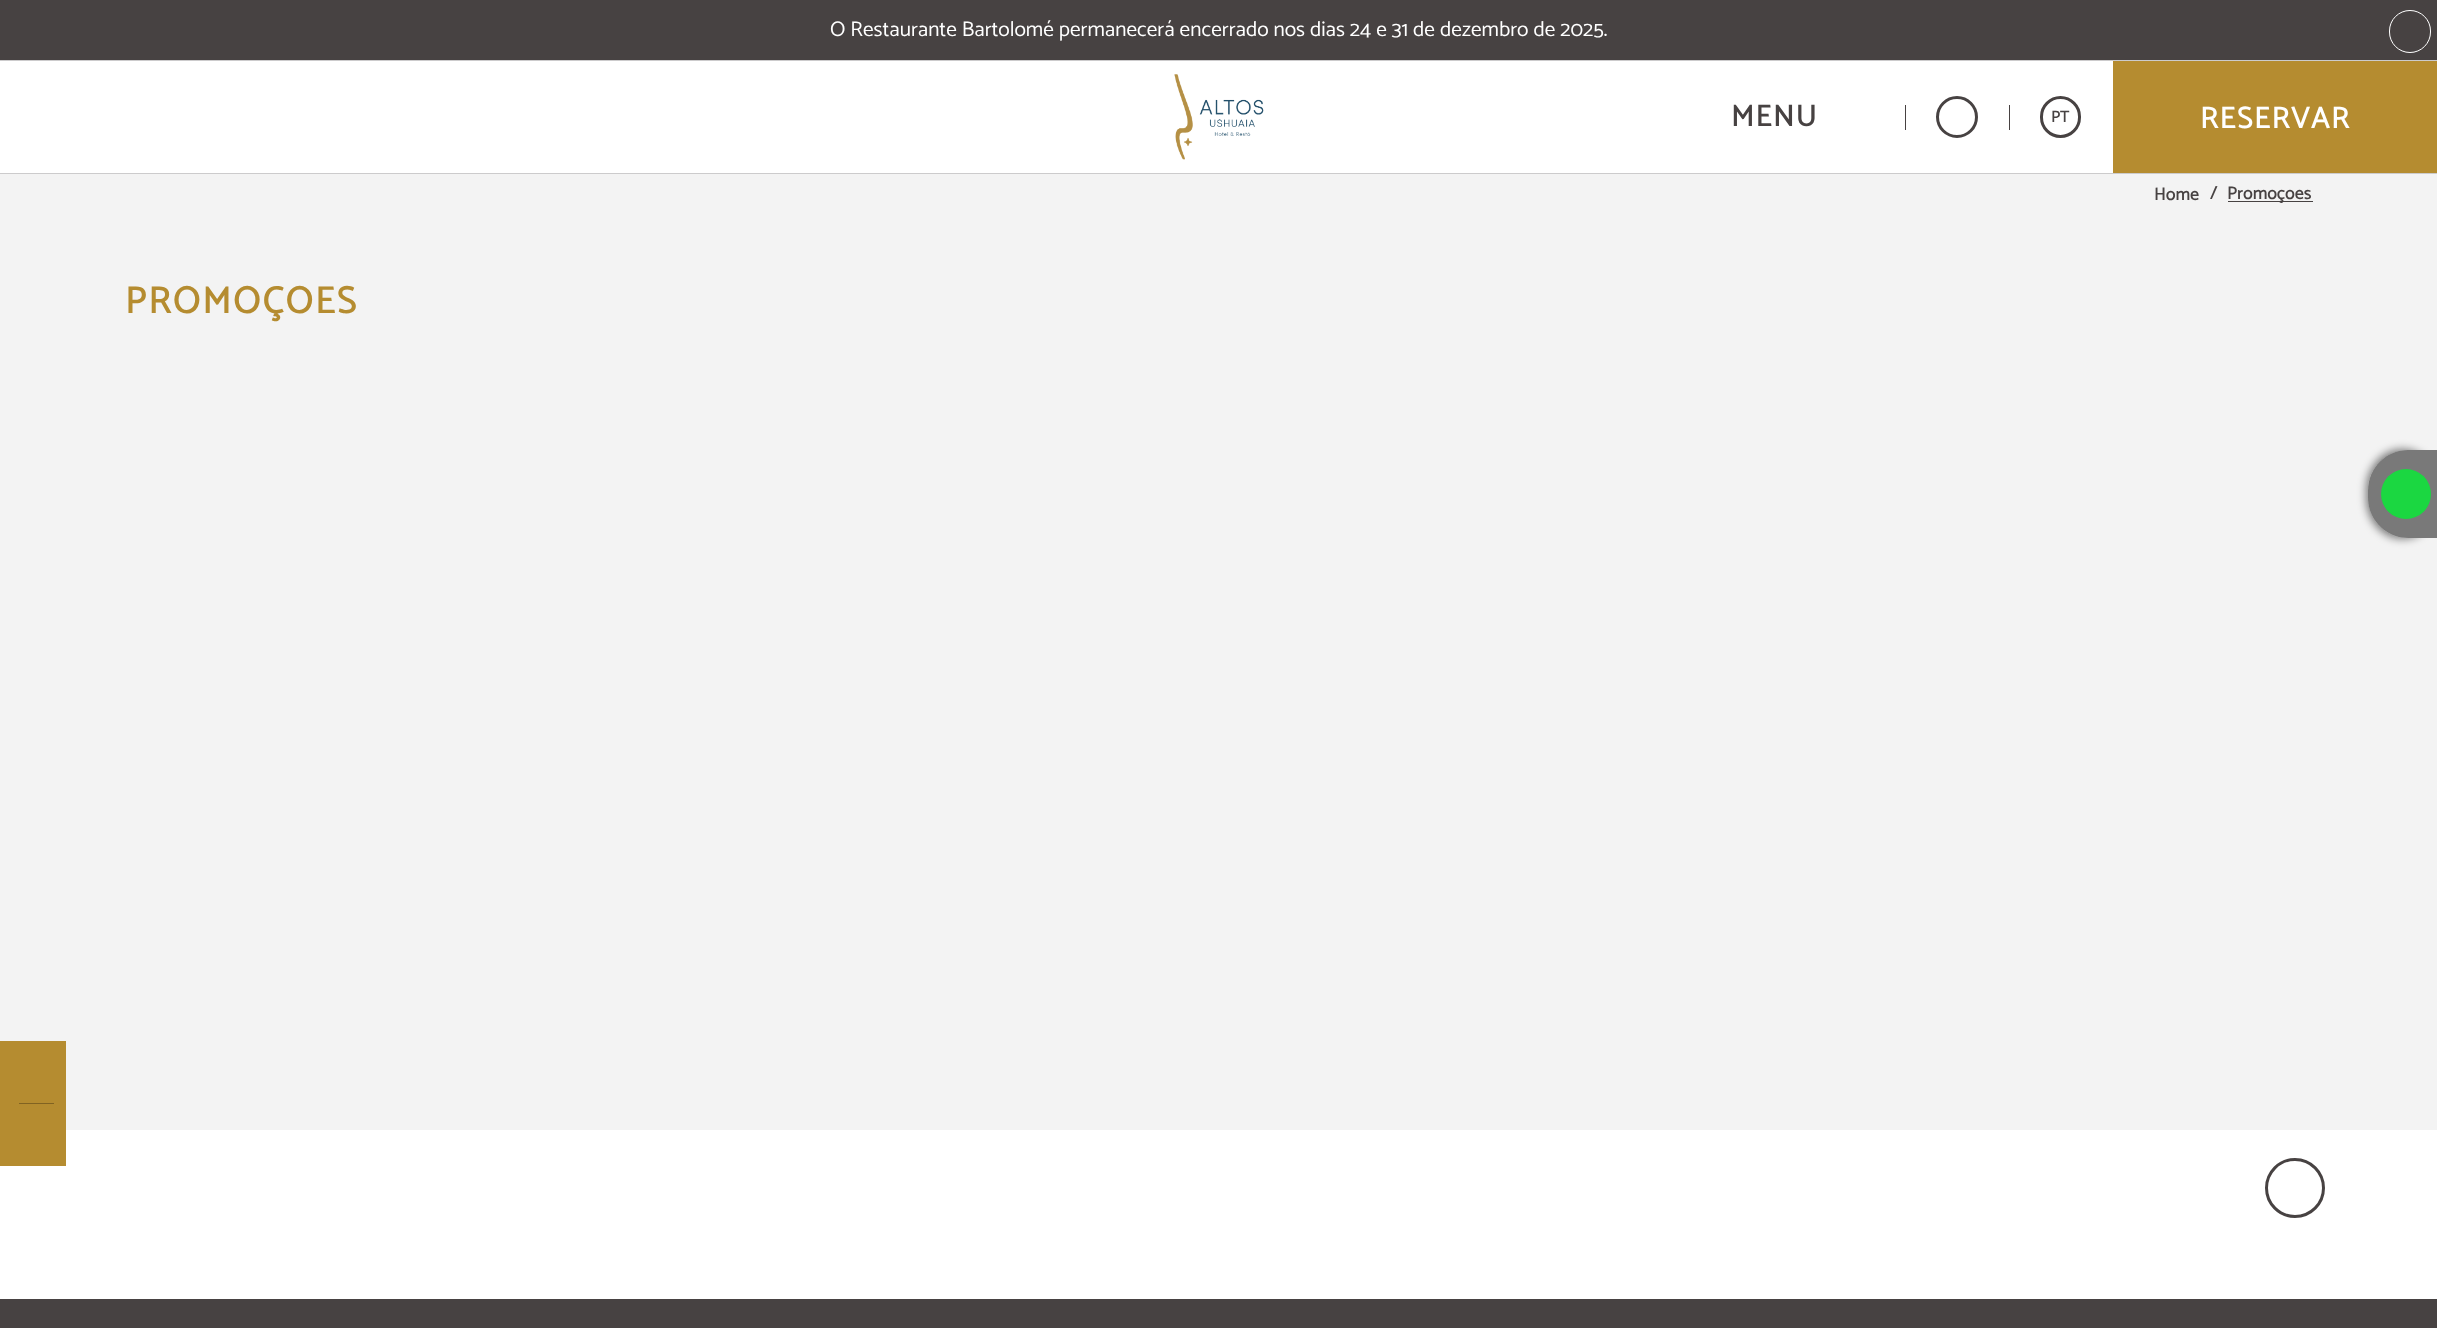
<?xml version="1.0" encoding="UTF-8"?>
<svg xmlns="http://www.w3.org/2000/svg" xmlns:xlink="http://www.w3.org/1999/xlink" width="2437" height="1328">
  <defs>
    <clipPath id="clip1"><path d="M 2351 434 h 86 v 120 h -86 z m 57 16 h 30 v 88 h -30 c -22 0 -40 -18 -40 -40 v -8 c 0 -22 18 -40 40 -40 z" clip-rule="evenodd" /></clipPath>
  </defs>
  <rect width="100%" height="100%" fill="#f3f3f3" />
  <rect width="2437" height="60" fill="#474242" />
  <rect y="60" width="2437" height="1" fill="#cccbcc" />
  <rect x="2389.5" y="10.5" width="41" height="42" rx="20.5" fill="none" stroke="#ffffff" />
  <rect y="61" width="2113" height="112" fill="#ffffff" />
  <rect y="173" width="2437" height="1" fill="#cccbcc" />
  <image x="1174" y="74" width="90" height="86" xlink:href="image1.png" />
  <rect x="1905" y="105" width="1" height="25" fill="#474242" />
  <circle cx="1957" cy="117" r="19.5" fill="none" stroke="#474242" stroke-width="3" />
  <rect x="2009" y="105" width="1" height="25" fill="#474242" />
  <rect x="2041.5" y="97.5" width="38" height="39" rx="19" fill="none" stroke="#474242" stroke-width="3" />
  <rect x="2113" y="61" width="324" height="112" fill="#b58c30" />
  <rect x="2228" y="201" width="85" height="1" fill="#474242" />
  <g clip-path="url(#clip1)">
    <rect x="2366" y="449" width="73" height="90" rx="41" fill="#000000" fill-opacity="0.5" filter="blur(4.5px)" />
  </g>
  <path d="M 2408 450 h 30 v 88 h -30 c -22 0 -40 -18 -40 -40 v -8 c 0 -22 18 -40 40 -40 z" fill="#000000" fill-opacity="0.5" />
  <circle cx="2406" cy="494" r="25" fill="#1bd741" />
  <rect y="1130" width="2437" height="169" fill="#ffffff" />
  <rect y="1041" width="66" height="125" fill="#b58c30" />
  <rect x="19" y="1103" width="35" height="1" fill="#816322" />
  <circle cx="2295" cy="1188" r="28.5" fill="none" stroke="#474242" stroke-width="3" />
  <rect y="1299" width="2437" height="29" fill="#474242" />
  <text x="830" y="36" style="font-family: Catamaran; font-size: 21.25px; font-weight: 100; fill: #ffffff">O Restaurante Bartolomé permanecerá encerrado nos dias 24 e 31 de dezembro de 2025.</text>
  <text x="1731" y="126" style="font-family: Catamaran; font-size: 30px; font-weight: bold; letter-spacing: 1.75px; fill: #474242">MENU</text>
  <text x="2051" y="122" style="font-family: Catamaran; font-size: 16px; font-weight: bold; fill: #474242">PT</text>
  <text x="2200" y="128" style="font-family: Catamaran; font-size: 30px; font-weight: bold; letter-spacing: 1.75px; fill: #ffffff">RESERVAR</text>
  <text x="2154" y="200" style="font-family: Catamaran; font-size: 17.5px; font-weight: bold; letter-spacing: 0.25px; fill: #474242">Home</text>
  <text x="2210" y="199" style="font-family: Catamaran; font-size: 17.5px; font-weight: bold; letter-spacing: 0.25px; fill: #474242">/</text>
  <text x="2227" y="199" style="font-family: Catamaran; font-size: 17.5px; font-weight: bold; letter-spacing: 0.25px; fill: #474242">Promoçoes</text>
  <text x="125" y="313" style="font-family: Catamaran; font-size: 37.5px; font-weight: bold; letter-spacing: 2.25px; fill: #b58c30">PROMOÇOES</text>
</svg>
